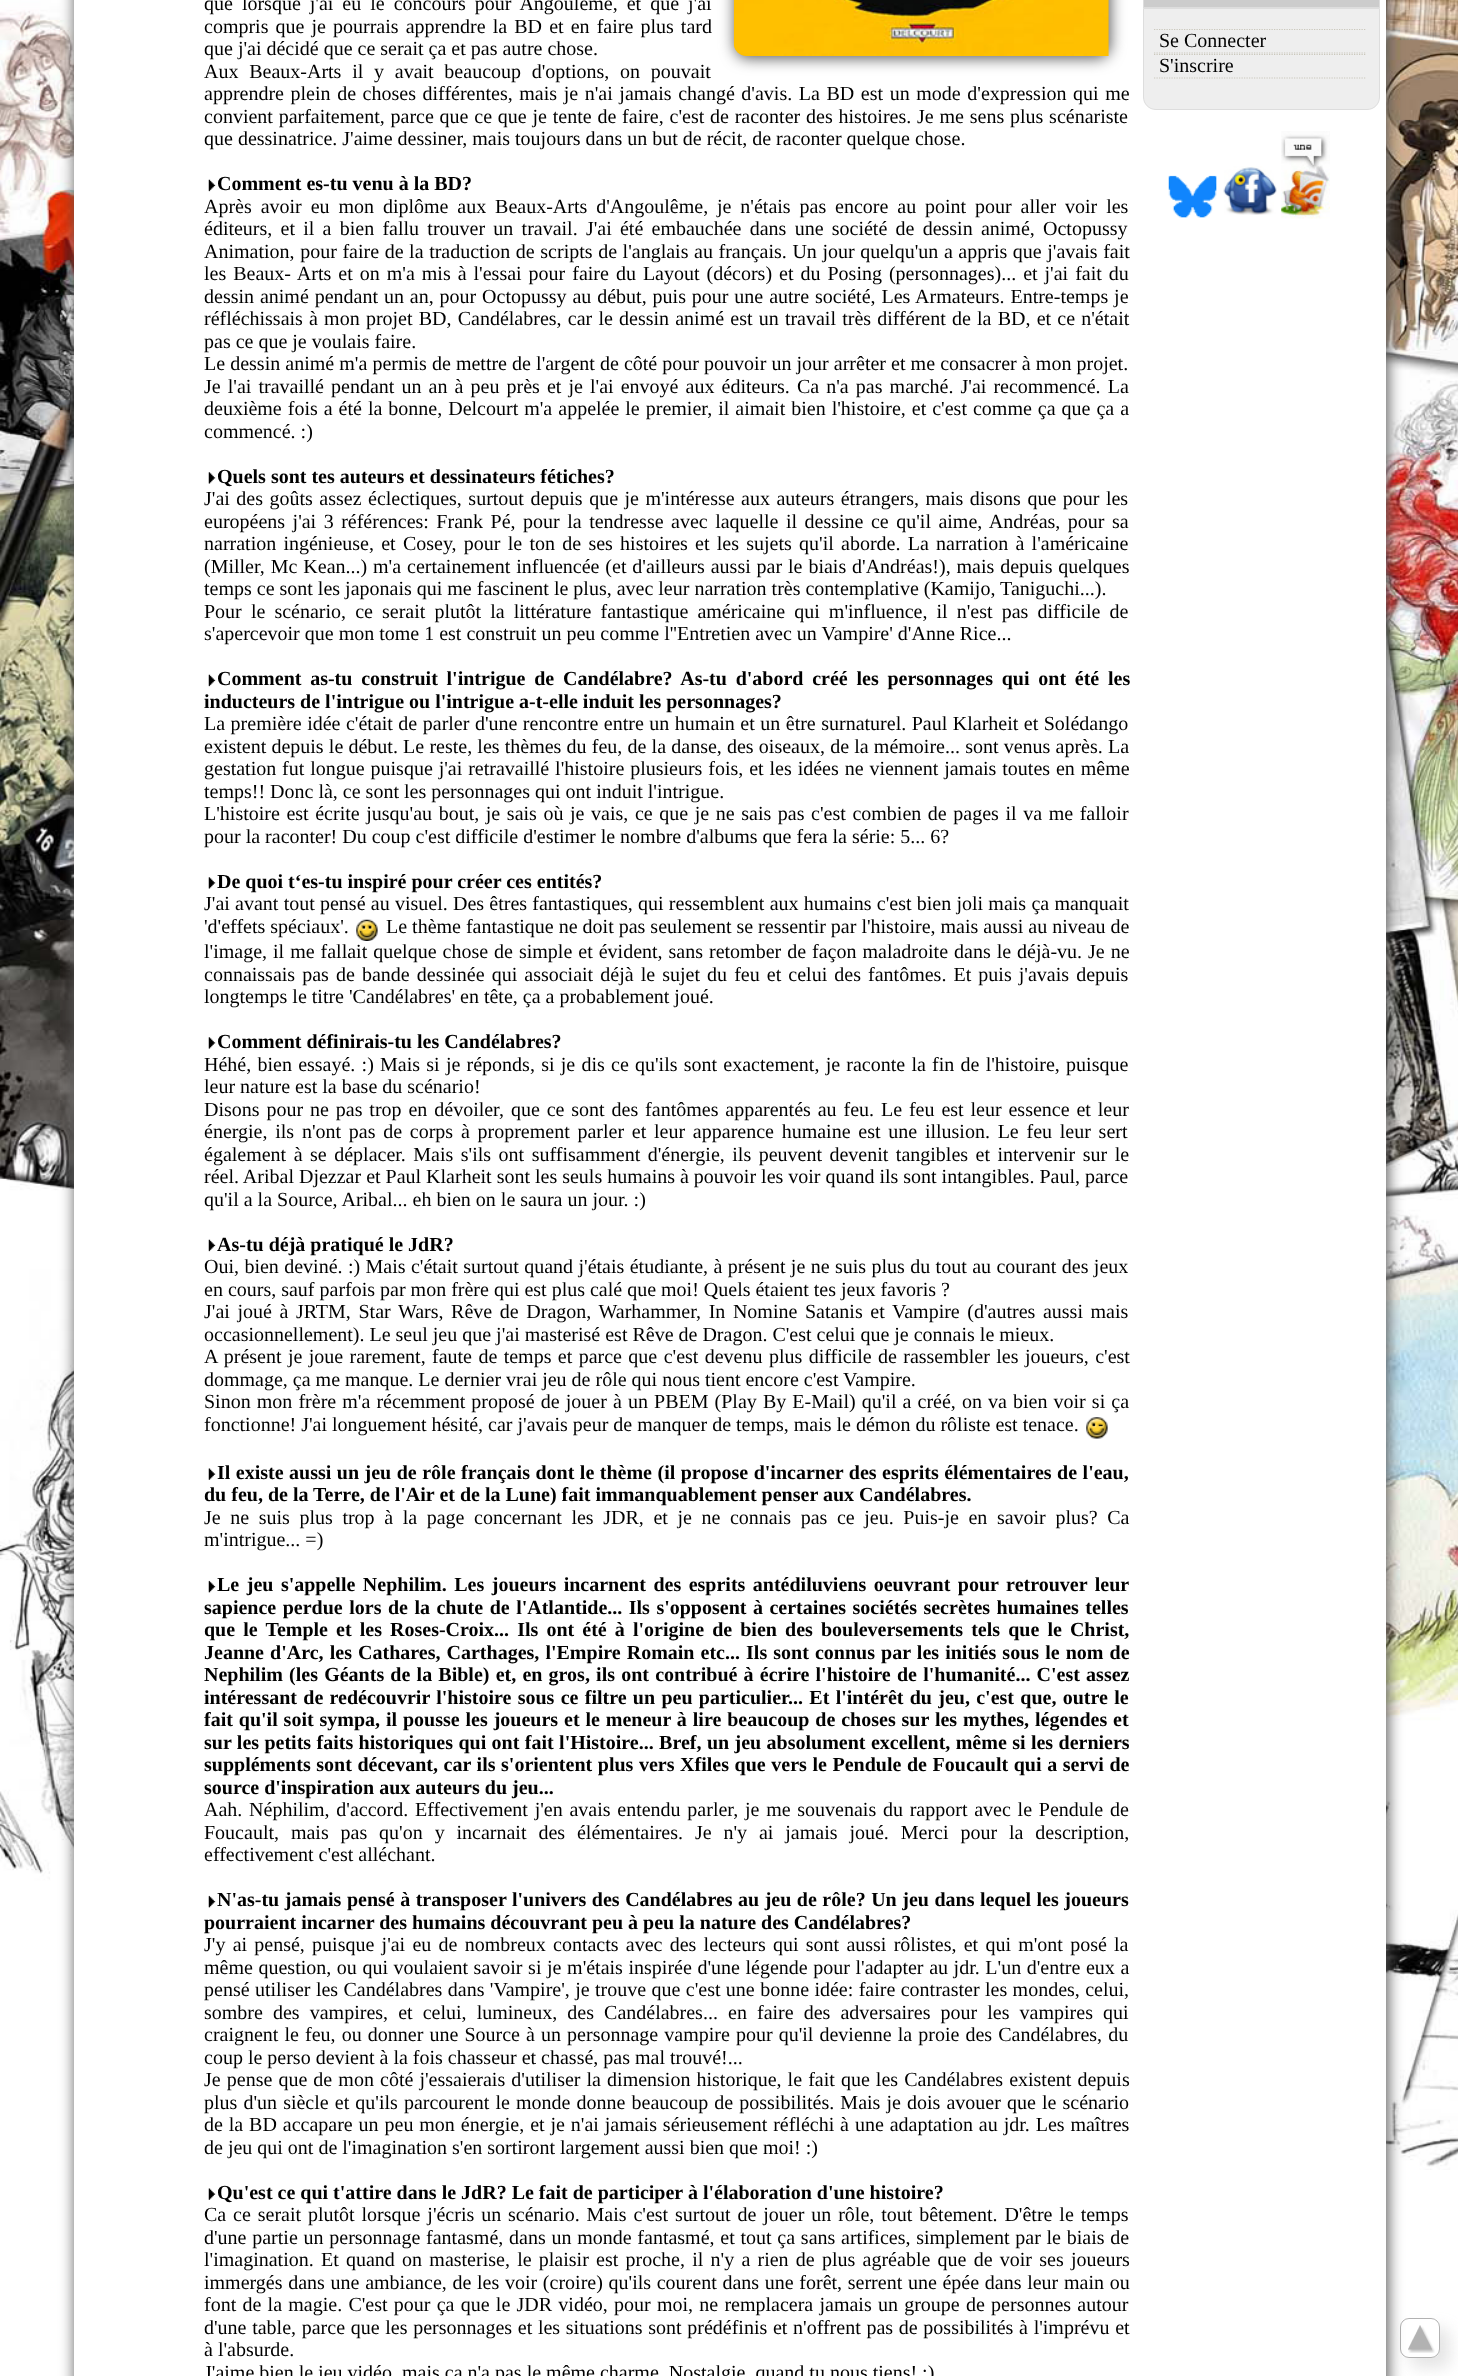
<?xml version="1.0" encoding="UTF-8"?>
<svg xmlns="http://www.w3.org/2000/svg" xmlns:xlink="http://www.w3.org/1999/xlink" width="1458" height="2376">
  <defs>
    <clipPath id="clip1"><path d="M 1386 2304 h 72 v 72 h -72 z m 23 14 h 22 c 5 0 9 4 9 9 v 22 c 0 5 -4 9 -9 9 h -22 c -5 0 -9 -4 -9 -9 v -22 c 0 -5 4 -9 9 -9 z" clip-rule="evenodd" /></clipPath>
  </defs>
  <rect width="100%" height="100%" fill="#ffffff" />
  <image x="0" y="0" width="1458" height="2170" xlink:href="image1.png" />
  <rect x="75" y="-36" width="1313" height="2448" rx="13" fill="#555555" filter="blur(7.5px)" />
  <rect x="74" width="1312" height="2376" fill="#ffffff" />
  <image x="208" y="179" width="8" height="13" xlink:href="image2.png" />
  <image x="208" y="472" width="8" height="12" xlink:href="image3.png" />
  <image x="208" y="674" width="8" height="13" xlink:href="image2.png" />
  <image x="208" y="877" width="8" height="12" xlink:href="image3.png" />
  <image x="356" y="919" width="22" height="22" xlink:href="image4.png" />
  <image x="208" y="1037" width="8" height="12" xlink:href="image5.png" />
  <image x="208" y="1239" width="8" height="13" xlink:href="image6.png" />
  <image x="1086" y="1417" width="22" height="22" xlink:href="image7.png" />
  <image x="208" y="1468" width="8" height="12" xlink:href="image8.png" />
  <image x="208" y="1580" width="8" height="13" xlink:href="image9.png" />
  <image x="208" y="1895" width="8" height="13" xlink:href="image9.png" />
  <image x="208" y="2188" width="8" height="12" xlink:href="image8.png" />
  <rect x="735" y="-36" width="375" height="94" rx="13" fill="#555555" filter="blur(7.5px)" />
  <image x="733" y="0" width="376" height="56" xlink:href="image10.png" />
  <rect x="1143.5" y="-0.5" width="236" height="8" fill="#cccccc" stroke="#dddddd" />
  <path d="M 1143.5 8.5 h 236 v 88.5 c 0 7 -5.5 12.5 -12.5 12.5 h -211 c -7 0 -12.5 -5.5 -12.5 -12.5 z" fill="#eeeeee" stroke="#dddddd" />
  <path d="M 1154 29.5 h 212" fill="none" stroke="#cac7bc" stroke-width="1.2" stroke-dasharray="1.25 1.25" />
  <path d="M 1154 53 h 212" fill="none" stroke="#cac7bc" stroke-width="1.2" stroke-dasharray="1.25 1.25" />
  <path d="M 1154 54.5 h 212" fill="none" stroke="#cac7bc" stroke-width="1.2" stroke-dasharray="1.25 1.25" />
  <path d="M 1154 78 h 212" fill="none" stroke="#cac7bc" stroke-width="1.2" stroke-dasharray="1.25 1.25" />
  <image x="1168" y="175" width="49" height="43" xlink:href="image11.png" />
  <image x="1223" y="166" width="54" height="49" xlink:href="image12.png" />
  <image x="1281" y="131" width="49" height="88" xlink:href="image13.png" />
  <g clip-path="url(#clip1)">
    <rect x="1410" y="2328" width="40" height="40" rx="9" fill="#aaaaaa" fill-opacity="0.3" filter="blur(7.5px)" />
  </g>
  <rect x="1400" y="2318" width="40" height="40" rx="9" fill="#ffffff" fill-opacity="0.3" />
  <rect x="1400.5" y="2318.5" width="39" height="39" rx="8.5" fill="none" stroke="#000000" stroke-opacity="0.3" />
  <image x="1408" y="2325" width="27" height="28" xlink:href="image14.png" />
  <text x="204" y="10" word-spacing="4" style="font-family: Liberation Serif; font-size: 20px; fill: #000000">que lorsque j'ai eu le concours pour Angoulême, et que j'ai</text>
  <text x="204" y="33" word-spacing="2.1" style="font-family: Liberation Serif; font-size: 20px; fill: #000000">compris que je pourrais apprendre la BD et en faire plus tard</text>
  <text x="204" y="55" style="font-family: Liberation Serif; font-size: 20px; fill: #000000">que j'ai décidé que ce serait ça et pas autre chose.</text>
  <text x="204" y="78" word-spacing="5.75" style="font-family: Liberation Serif; font-size: 20px; fill: #000000">Aux Beaux-Arts il y avait beaucoup d'options, on pouvait</text>
  <text x="204" y="100" word-spacing="1.6" style="font-family: Liberation Serif; font-size: 20px; fill: #000000">apprendre plein de choses différentes, mais je n'ai jamais changé d'avis. La BD est un mode d'expression qui me</text>
  <text x="204" y="123" word-spacing="0.8" style="font-family: Liberation Serif; font-size: 20px; fill: #000000">convient parfaitement, parce que ce que je tente de faire, c'est de raconter des histoires. Je me sens plus scénariste</text>
  <text x="204" y="145" style="font-family: Liberation Serif; font-size: 20px; fill: #000000">que dessinatrice. J'aime dessiner, mais toujours dans un but de récit, de raconter quelque chose.</text>
  <text x="217" y="190" style="font-family: Liberation Serif; font-size: 20px; font-weight: bold; fill: #000000">Comment es-tu venu à la BD?</text>
  <text x="204" y="213" word-spacing="3.9" style="font-family: Liberation Serif; font-size: 20px; fill: #000000">Après avoir eu mon diplôme aux Beaux-Arts d'Angoulême, je n'étais pas encore au point pour aller voir les</text>
  <text x="204" y="235" word-spacing="3.25" style="font-family: Liberation Serif; font-size: 20px; fill: #000000">éditeurs, et il a bien fallu trouver un travail. J'ai été embauchée dans une société de dessin animé, Octopussy</text>
  <text x="204" y="258" word-spacing="0.6" style="font-family: Liberation Serif; font-size: 20px; fill: #000000">Animation, pour faire de la traduction de scripts de l'anglais au français. Un jour quelqu'un a appris que j'avais fait</text>
  <text x="204" y="280" word-spacing="2" style="font-family: Liberation Serif; font-size: 20px; fill: #000000">les Beaux- Arts et on m'a mis à l'essai pour faire du Layout (décors) et du Posing (personnages)... et j'ai fait du</text>
  <text x="204" y="303" word-spacing="0.9" style="font-family: Liberation Serif; font-size: 20px; fill: #000000">dessin animé pendant un an, pour Octopussy au début, puis pour une autre société, Les Armateurs. Entre-temps je</text>
  <text x="204" y="325" word-spacing="1.2" style="font-family: Liberation Serif; font-size: 20px; fill: #000000">réfléchissais à mon projet BD, Candélabres, car le dessin animé est un travail très différent de la BD, et ce n'était</text>
  <text x="204" y="348" style="font-family: Liberation Serif; font-size: 20px; fill: #000000">pas ce que je voulais faire.</text>
  <text x="204" y="370" word-spacing="0.1" style="font-family: Liberation Serif; font-size: 20px; fill: #000000">Le dessin animé m'a permis de mettre de l'argent de côté pour pouvoir un jour arrêter et me consacrer à mon projet.</text>
  <text x="204" y="393" word-spacing="2.1" style="font-family: Liberation Serif; font-size: 20px; fill: #000000">Je l'ai travaillé pendant un an à peu près et je l'ai envoyé aux éditeurs. Ca n'a pas marché. J'ai recommencé. La</text>
  <text x="204" y="415" word-spacing="1" style="font-family: Liberation Serif; font-size: 20px; fill: #000000">deuxième fois a été la bonne, Delcourt m'a appelée le premier, il aimait bien l'histoire, et c'est comme ça que ça a</text>
  <text x="204" y="438" style="font-family: Liberation Serif; font-size: 20px; fill: #000000">commencé. :)</text>
  <text x="217" y="483" style="font-family: Liberation Serif; font-size: 20px; font-weight: bold; fill: #000000">Quels sont tes auteurs et dessinateurs fétiches?</text>
  <text x="204" y="505" word-spacing="1.5" style="font-family: Liberation Serif; font-size: 20px; fill: #000000">J'ai des goûts assez éclectiques, surtout depuis que je m'intéresse aux auteurs étrangers, mais disons que pour les</text>
  <text x="204" y="528" word-spacing="2.5" style="font-family: Liberation Serif; font-size: 20px; fill: #000000">européens j'ai 3 références: Frank Pé, pour la tendresse avec laquelle il dessine ce qu'il aime, Andréas, pour sa</text>
  <text x="204" y="550" word-spacing="2.25" style="font-family: Liberation Serif; font-size: 20px; fill: #000000">narration ingénieuse, et Cosey, pour le ton de ses histoires et les sujets qu'il aborde. La narration à l'américaine</text>
  <text x="204" y="573" word-spacing="0.9" style="font-family: Liberation Serif; font-size: 20px; fill: #000000">(Miller, Mc Kean...) m'a certainement influencée (et d'ailleurs aussi par le biais d'Andréas!), mais depuis quelques</text>
  <text x="204" y="595" style="font-family: Liberation Serif; font-size: 20px; fill: #000000">temps ce sont les japonais qui me fascinent le plus, avec leur narration très contemplative (Kamijo, Taniguchi...).</text>
  <text x="204" y="618" word-spacing="4.1" style="font-family: Liberation Serif; font-size: 20px; fill: #000000">Pour le scénario, ce serait plutôt la littérature fantastique américaine qui m'influence, il n'est pas difficile de</text>
  <text x="204" y="640" style="font-family: Liberation Serif; font-size: 20px; fill: #000000">s'apercevoir que mon tome 1 est construit un peu comme l''Entretien avec un Vampire' d'Anne Rice...</text>
  <text x="217" y="685" word-spacing="3.75" style="font-family: Liberation Serif; font-size: 20px; font-weight: bold; fill: #000000">Comment as-tu construit l'intrigue de Candélabre? As-tu d'abord créé les personnages qui ont été les</text>
  <text x="204" y="708" style="font-family: Liberation Serif; font-size: 20px; font-weight: bold; fill: #000000">inducteurs de l'intrigue ou l'intrigue a-t-elle induit les personnages?</text>
  <text x="204" y="730" word-spacing="0.5" style="font-family: Liberation Serif; font-size: 20px; fill: #000000">La première idée c'était de parler d'une rencontre entre un humain et un être surnaturel. Paul Klarheit et Solédango</text>
  <text x="204" y="753" word-spacing="0.2" style="font-family: Liberation Serif; font-size: 20px; fill: #000000">existent depuis le début. Le reste, les thèmes du feu, de la danse, des oiseaux, de la mémoire... sont venus après. La</text>
  <text x="204" y="775" word-spacing="0.9" style="font-family: Liberation Serif; font-size: 20px; fill: #000000">gestation fut longue puisque j'ai retravaillé l'histoire plusieurs fois, et les idées ne viennent jamais toutes en même</text>
  <text x="204" y="798" style="font-family: Liberation Serif; font-size: 20px; fill: #000000">temps!! Donc là, ce sont les personnages qui ont induit l'intrigue.</text>
  <text x="204" y="820" word-spacing="1.6" style="font-family: Liberation Serif; font-size: 20px; fill: #000000">L'histoire est écrite jusqu'au bout, je sais où je vais, ce que je ne sais pas c'est combien de pages il va me falloir</text>
  <text x="204" y="843" style="font-family: Liberation Serif; font-size: 20px; fill: #000000">pour la raconter! Du coup c'est difficile d'estimer le nombre d'albums que fera la série: 5... 6?</text>
  <text x="217" y="888" style="font-family: Liberation Serif; font-size: 20px; font-weight: bold; fill: #000000">De quoi t‘es-tu inspiré pour créer ces entités?</text>
  <text x="204" y="910" word-spacing="0.25" style="font-family: Liberation Serif; font-size: 20px; fill: #000000">J'ai avant tout pensé au visuel. Des êtres fantastiques, qui ressemblent aux humains c'est bien joli mais ça manquait</text>
  <text x="204" y="933" style="font-family: Liberation Serif; font-size: 20px; fill: #000000">'d'effets spéciaux'.</text>
  <text x="386" y="933" style="font-family: Liberation Serif; font-size: 20px; fill: #000000">Le thème fantastique ne doit pas seulement se ressentir par l'histoire, mais aussi au niveau de</text>
  <text x="204" y="958" word-spacing="1" style="font-family: Liberation Serif; font-size: 20px; fill: #000000">l'image, il me fallait quelque chose de simple et évident, sans retomber de façon maladroite dans le déjà-vu. Je ne</text>
  <text x="204" y="981" word-spacing="2.1" style="font-family: Liberation Serif; font-size: 20px; fill: #000000">connaissais pas de bande dessinée qui associait déjà le sujet du feu et celui des fantômes. Et puis j'avais depuis</text>
  <text x="204" y="1003" style="font-family: Liberation Serif; font-size: 20px; fill: #000000">longtemps le titre 'Candélabres' en tête, ça a probablement joué.</text>
  <text x="217" y="1048" style="font-family: Liberation Serif; font-size: 20px; font-weight: bold; fill: #000000">Comment définirais-tu les Candélabres?</text>
  <text x="204" y="1071" word-spacing="1.25" style="font-family: Liberation Serif; font-size: 20px; fill: #000000">Héhé, bien essayé. :) Mais si je réponds, si je dis ce qu'ils sont exactement, je raconte la fin de l'histoire, puisque</text>
  <text x="204" y="1093" style="font-family: Liberation Serif; font-size: 20px; fill: #000000">leur nature est la base du scénario!</text>
  <text x="204" y="1116" word-spacing="1.9" style="font-family: Liberation Serif; font-size: 20px; fill: #000000">Disons pour ne pas trop en dévoiler, que ce sont des fantômes apparentés au feu. Le feu est leur essence et leur</text>
  <text x="204" y="1138" word-spacing="2.75" style="font-family: Liberation Serif; font-size: 20px; fill: #000000">énergie, ils n'ont pas de corps à proprement parler et leur apparence humaine est une illusion. Le feu leur sert</text>
  <text x="204" y="1161" word-spacing="2.5" style="font-family: Liberation Serif; font-size: 20px; fill: #000000">également à se déplacer. Mais s'ils ont suffisamment d'énergie, ils peuvent devenit tangibles et intervenir sur le</text>
  <text x="204" y="1183" style="font-family: Liberation Serif; font-size: 20px; fill: #000000">réel. Aribal Djezzar et Paul Klarheit sont les seuls humains à pouvoir les voir quand ils sont intangibles. Paul, parce</text>
  <text x="204" y="1206" style="font-family: Liberation Serif; font-size: 20px; fill: #000000">qu'il a la Source, Aribal... eh bien on le saura un jour. :)</text>
  <text x="217" y="1251" style="font-family: Liberation Serif; font-size: 20px; font-weight: bold; fill: #000000">As-tu déjà pratiqué le JdR?</text>
  <text x="204" y="1273" word-spacing="0.4" style="font-family: Liberation Serif; font-size: 20px; fill: #000000">Oui, bien deviné. :) Mais c'était surtout quand j'étais étudiante, à présent je ne suis plus du tout au courant des jeux</text>
  <text x="204" y="1296" style="font-family: Liberation Serif; font-size: 20px; fill: #000000">en cours, sauf parfois par mon frère qui est plus calé que moi! Quels étaient tes jeux favoris ?</text>
  <text x="204" y="1318" word-spacing="2.6" style="font-family: Liberation Serif; font-size: 20px; fill: #000000">J'ai joué à JRTM, Star Wars, Rêve de Dragon, Warhammer, In Nomine Satanis et Vampire (d'autres aussi mais</text>
  <text x="204" y="1341" style="font-family: Liberation Serif; font-size: 20px; fill: #000000">occasionnellement). Le seul jeu que j'ai masterisé est Rêve de Dragon. C'est celui que je connais le mieux.</text>
  <text x="204" y="1363" word-spacing="1.4" style="font-family: Liberation Serif; font-size: 20px; fill: #000000">A présent je joue rarement, faute de temps et parce que c'est devenu plus difficile de rassembler les joueurs, c'est</text>
  <text x="204" y="1386" style="font-family: Liberation Serif; font-size: 20px; fill: #000000">dommage, ça me manque. Le dernier vrai jeu de rôle qui nous tient encore c'est Vampire.</text>
  <text x="204" y="1408" word-spacing="1.1" style="font-family: Liberation Serif; font-size: 20px; fill: #000000">Sinon mon frère m'a récemment proposé de jouer à un PBEM (Play By E-Mail) qu'il a créé, on va bien voir si ça</text>
  <text x="204" y="1431" style="font-family: Liberation Serif; font-size: 20px; fill: #000000">fonctionne! J'ai longuement hésité, car j'avais peur de manquer de temps, mais le démon du rôliste est tenace.</text>
  <text x="217" y="1479" word-spacing="0.5" style="font-family: Liberation Serif; font-size: 20px; font-weight: bold; fill: #000000">Il existe aussi un jeu de rôle français dont le thème (il propose d'incarner des esprits élémentaires de l'eau,</text>
  <text x="204" y="1501" style="font-family: Liberation Serif; font-size: 20px; font-weight: bold; fill: #000000">du feu, de la Terre, de l'Air et de la Lune) fait immanquablement penser aux Candélabres.</text>
  <text x="204" y="1524" word-spacing="4.6" style="font-family: Liberation Serif; font-size: 20px; fill: #000000">Je ne suis plus trop à la page concernant les JDR, et je ne connais pas ce jeu. Puis-je en savoir plus? Ca</text>
  <text x="204" y="1546" style="font-family: Liberation Serif; font-size: 20px; fill: #000000">m'intrigue... =)</text>
  <text x="217" y="1591" word-spacing="2.5" style="font-family: Liberation Serif; font-size: 20px; font-weight: bold; fill: #000000">Le jeu s'appelle Nephilim. Les joueurs incarnent des esprits antédiluviens oeuvrant pour retrouver leur</text>
  <text x="204" y="1614" word-spacing="1.5" style="font-family: Liberation Serif; font-size: 20px; font-weight: bold; fill: #000000">sapience perdue lors de la chute de l'Atlantide... Ils s'opposent à certaines sociétés secrètes humaines telles</text>
  <text x="204" y="1636" word-spacing="3.1" style="font-family: Liberation Serif; font-size: 20px; font-weight: bold; fill: #000000">que le Temple et les Roses-Croix... Ils ont été à l'origine de bien des bouleversements tels que le Christ,</text>
  <text x="204" y="1659" word-spacing="1.1" style="font-family: Liberation Serif; font-size: 20px; font-weight: bold; fill: #000000">Jeanne d'Arc, les Cathares, Carthages, l'Empire Romain etc... Ils sont connus par les initiés sous le nom de</text>
  <text x="204" y="1681" word-spacing="1.2" style="font-family: Liberation Serif; font-size: 20px; font-weight: bold; fill: #000000">Nephilim (les Géants de la Bible) et, en gros, ils ont contribué à écrire l'histoire de l'humanité... C'est assez</text>
  <text x="204" y="1704" word-spacing="1.3" style="font-family: Liberation Serif; font-size: 20px; font-weight: bold; fill: #000000">intéressant de redécouvrir l'histoire sous ce filtre un peu particulier... Et l'intérêt du jeu, c'est que, outre le</text>
  <text x="204" y="1726" word-spacing="0.9" style="font-family: Liberation Serif; font-size: 20px; font-weight: bold; fill: #000000">fait qu'il soit sympa, il pousse les joueurs et le meneur à lire beaucoup de choses sur les mythes, légendes et</text>
  <text x="204" y="1749" word-spacing="0.4" style="font-family: Liberation Serif; font-size: 20px; font-weight: bold; fill: #000000">sur les petits faits historiques qui ont fait l'Histoire... Bref, un jeu absolument excellent, même si les derniers</text>
  <text x="204" y="1771" word-spacing="0.6" style="font-family: Liberation Serif; font-size: 20px; font-weight: bold; fill: #000000">suppléments sont décevant, car ils s'orientent plus vers Xfiles que vers le Pendule de Foucault qui a servi de</text>
  <text x="204" y="1794" style="font-family: Liberation Serif; font-size: 20px; font-weight: bold; fill: #000000">source d'inspiration aux auteurs du jeu...</text>
  <text x="204" y="1816" word-spacing="1.75" style="font-family: Liberation Serif; font-size: 20px; fill: #000000">Aah. Néphilim, d'accord. Effectivement j'en avais entendu parler, je me souvenais du rapport avec le Pendule de</text>
  <text x="204" y="1839" word-spacing="6.9" style="font-family: Liberation Serif; font-size: 20px; fill: #000000">Foucault, mais pas qu'on y incarnait des élémentaires. Je n'y ai jamais joué. Merci pour la description,</text>
  <text x="204" y="1861" style="font-family: Liberation Serif; font-size: 20px; fill: #000000">effectivement c'est alléchant.</text>
  <text x="217" y="1906" word-spacing="0.5" style="font-family: Liberation Serif; font-size: 20px; font-weight: bold; fill: #000000">N'as-tu jamais pensé à transposer l'univers des Candélabres au jeu de rôle? Un jeu dans lequel les joueurs</text>
  <text x="204" y="1929" style="font-family: Liberation Serif; font-size: 20px; font-weight: bold; fill: #000000">pourraient incarner des humains découvrant peu à peu la nature des Candélabres?</text>
  <text x="204" y="1951" word-spacing="2.25" style="font-family: Liberation Serif; font-size: 20px; fill: #000000">J'y ai pensé, puisque j'ai eu de nombreux contacts avec des lecteurs qui sont aussi rôlistes, et qui m'ont posé la</text>
  <text x="204" y="1974" word-spacing="0.6" style="font-family: Liberation Serif; font-size: 20px; fill: #000000">même question, ou qui voulaient savoir si je m'étais inspirée d'une légende pour l'adapter au jdr. L'un d'entre eux a</text>
  <text x="204" y="1996" word-spacing="0.4" style="font-family: Liberation Serif; font-size: 20px; fill: #000000">pensé utiliser les Candélabres dans 'Vampire', je trouve que c'est une bonne idée: faire contraster les mondes, celui,</text>
  <text x="204" y="2019" word-spacing="5.1" style="font-family: Liberation Serif; font-size: 20px; fill: #000000">sombre des vampires, et celui, lumineux, des Candélabres... en faire des adversaires pour les vampires qui</text>
  <text x="204" y="2041" word-spacing="1.1" style="font-family: Liberation Serif; font-size: 20px; fill: #000000">craignent le feu, ou donner une Source à un personnage vampire pour qu'il devienne la proie des Candélabres, du</text>
  <text x="204" y="2064" style="font-family: Liberation Serif; font-size: 20px; fill: #000000">coup le perso devient à la fois chasseur et chassé, pas mal trouvé!...</text>
  <text x="204" y="2086" word-spacing="1.1" style="font-family: Liberation Serif; font-size: 20px; fill: #000000">Je pense que de mon côté j'essaierais d'utiliser la dimension historique, le fait que les Candélabres existent depuis</text>
  <text x="204" y="2109" word-spacing="1.1" style="font-family: Liberation Serif; font-size: 20px; fill: #000000">plus d'un siècle et qu'ils parcourent le monde donne beaucoup de possibilités. Mais je dois avouer que le scénario</text>
  <text x="204" y="2131" word-spacing="0.9" style="font-family: Liberation Serif; font-size: 20px; fill: #000000">de la BD accapare un peu mon énergie, et je n'ai jamais sérieusement réfléchi à une adaptation au jdr. Les maîtres</text>
  <text x="204" y="2154" style="font-family: Liberation Serif; font-size: 20px; fill: #000000">de jeu qui ont de l'imagination s'en sortiront largement aussi bien que moi! :)</text>
  <text x="217" y="2199" style="font-family: Liberation Serif; font-size: 20px; font-weight: bold; fill: #000000">Qu'est ce qui t'attire dans le JdR? Le fait de participer à l'élaboration d'une histoire?</text>
  <text x="204" y="2221" word-spacing="1.9" style="font-family: Liberation Serif; font-size: 20px; fill: #000000">Ca ce serait plutôt lorsque j'écris un scénario. Mais c'est surtout de jouer un rôle, tout bêtement. D'être le temps</text>
  <text x="204" y="2244" word-spacing="0.75" style="font-family: Liberation Serif; font-size: 20px; fill: #000000">d'une partie un personnage fantasmé, dans un monde fantasmé, et tout ça sans artifices, simplement par le biais de</text>
  <text x="204" y="2266" word-spacing="2.25" style="font-family: Liberation Serif; font-size: 20px; fill: #000000">l'imagination. Et quand on masterise, le plaisir est proche, il n'y a rien de plus agréable que de voir ses joueurs</text>
  <text x="204" y="2289" word-spacing="0.7" style="font-family: Liberation Serif; font-size: 20px; fill: #000000">immergés dans une ambiance, de les voir (croire) qu'ils courent dans une forêt, serrent une épée dans leur main ou</text>
  <text x="204" y="2311" word-spacing="1.25" style="font-family: Liberation Serif; font-size: 20px; fill: #000000">font de la magie. C'est pour ça que le JDR vidéo, pour moi, ne remplacera jamais un groupe de personnes autour</text>
  <text x="204" y="2334" word-spacing="0.7" style="font-family: Liberation Serif; font-size: 20px; fill: #000000">d'une table, parce que les personnages et les situations sont prédéfinis et n'offrent pas de possibilités à l'imprévu et</text>
  <text x="204" y="2356" style="font-family: Liberation Serif; font-size: 20px; fill: #000000">à l'absurde.</text>
  <text x="204" y="2379" style="font-family: Liberation Serif; font-size: 20px; fill: #000000">J'aime bien le jeu vidéo, mais ça n'a pas le même charme. Nostalgie, quand tu nous tiens! :)</text>
  <text x="1159" y="47" style="font-family: Liberation Serif; font-size: 20px; fill: #000000">Se Connecter</text>
  <text x="1159" y="72" style="font-family: Liberation Serif; font-size: 20px; fill: #000000">S'inscrire</text>
</svg>
